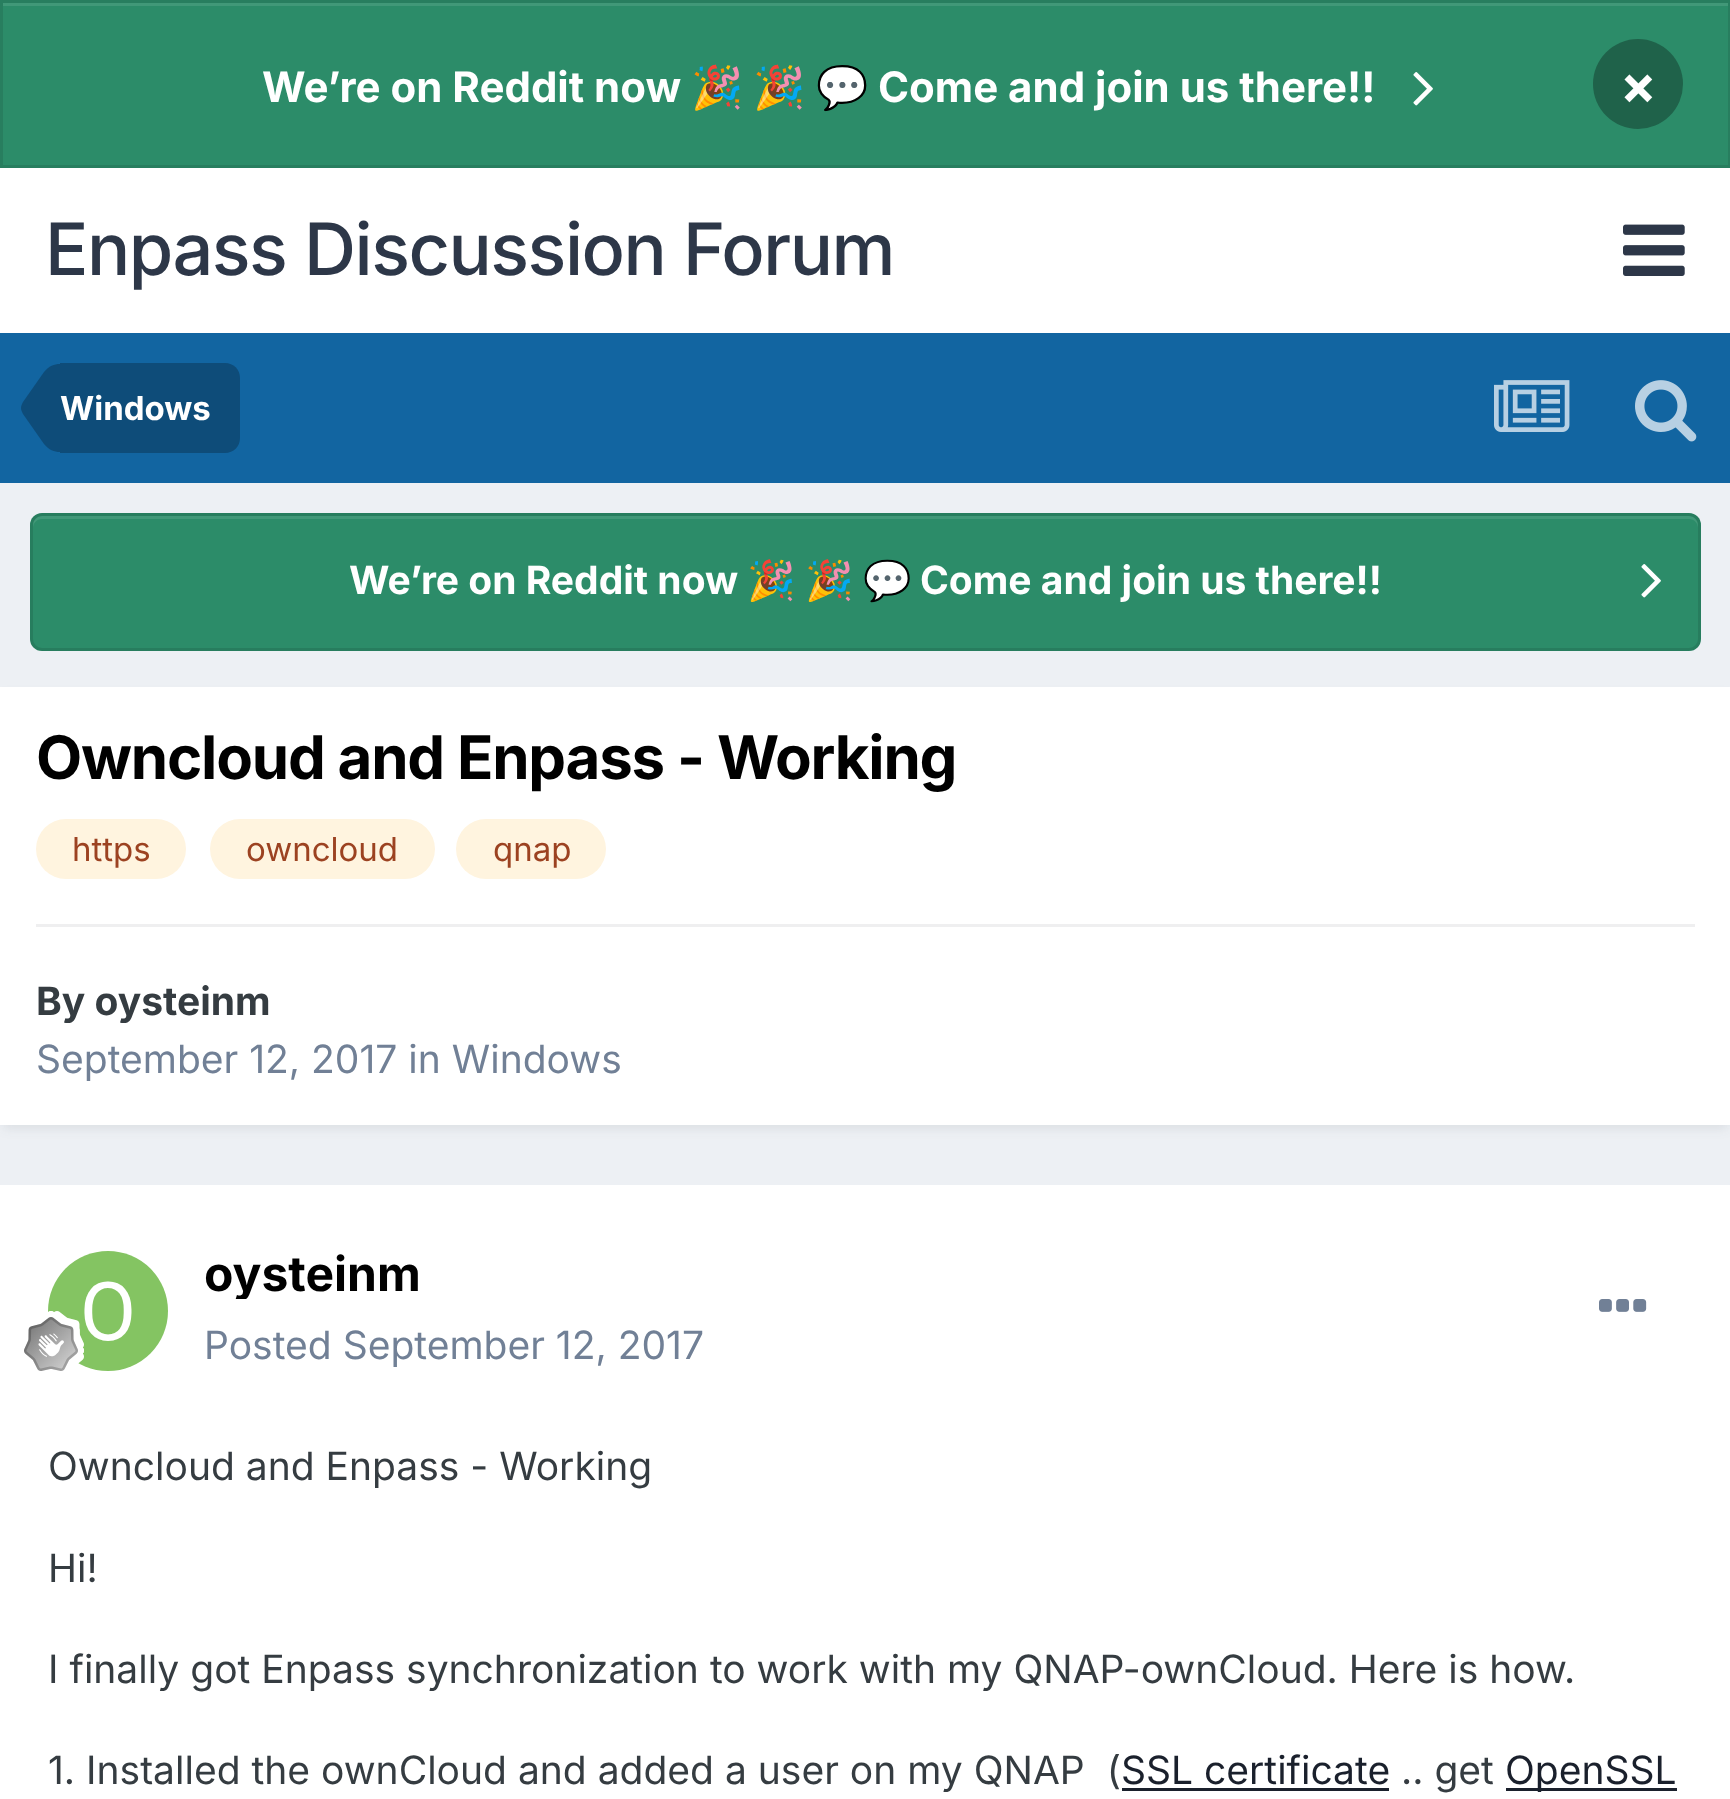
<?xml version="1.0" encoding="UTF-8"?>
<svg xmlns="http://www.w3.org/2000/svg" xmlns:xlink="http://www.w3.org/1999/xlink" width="1730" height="1799">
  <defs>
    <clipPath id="clip1"><rect x="204" y="1245" width="216" height="54" /></clipPath>
  </defs>
  <rect width="100%" height="100%" fill="#edf0f4" />
  <rect x="3" y="6" width="1725" height="159" fill="#2c8c69" />
  <rect x="3" y="3" width="1725" height="3" fill="#419878" />
  <rect x="1.5" y="1.5" width="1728" height="165" fill="none" stroke="#287e5f" stroke-width="3" />
  <image x="1413" y="72" width="20" height="34" xlink:href="image1.png" />
  <circle cx="1638" cy="84" r="45" fill="#1f624a" />
  <rect y="168" width="1730" height="165" fill="#ffffff" />
  <image x="1623" y="224" width="62" height="52" xlink:href="image2.png" />
  <rect y="333" width="1730" height="150" fill="#1265a1" />
  <path d="M 60 363 h 165 c 8.5 0 15 6.5 15 15 v 60 c 0 8.5 -6.5 15 -15 15 h -165 z" fill="#0e4c79" />
  <path d="M 60 408 v 44 c -6 0 -11 -2 -16 -8 l -21 -30 c -1 -2 -2 -4 -2 -6 z" fill="#0e4c79" />
  <path d="M 60 408 h -39 c 0 -2 1 -4 2 -6 l 21 -30 c 5 -6 10 -8 16 -8 z" fill="#0e4c79" />
  <image x="1494" y="380" width="76" height="52" xlink:href="image3.png" />
  <image x="1635" y="380" width="62" height="62" xlink:href="image4.png" />
  <rect x="30" y="513" width="1671" height="138" rx="12" fill="#2c8c69" />
  <path d="M 42 519 h 1647 c 5 0 9 4 9 9 v -3 c 0 -5 -4 -9 -9 -9 h -1647 c -5 0 -9 4 -9 9 v 3 c 0 -5 4 -9 9 -9 z" fill="#419878" />
  <rect x="31.5" y="514.5" width="1668" height="135" rx="10.5" fill="none" stroke="#000000" stroke-opacity="0.1" stroke-width="3" />
  <image x="1641" y="564" width="20" height="34" xlink:href="image1.png" />
  <rect x="3" y="696" width="1725" height="432" fill="#2d3748" fill-opacity="0.1" filter="blur(6px)" />
  <rect y="687" width="1730" height="438" fill="#ffffff" />
  <rect x="36" y="819" width="150" height="60" rx="30" fill="#fff4df" />
  <rect x="210" y="819" width="225" height="60" rx="30" fill="#fff4df" />
  <rect x="456" y="819" width="150" height="60" rx="30" fill="#fff4df" />
  <rect x="36" y="924" width="1659" height="3" fill="#efeff0" />
  <rect y="1185" width="1730" height="614" fill="#ffffff" />
  <image x="48" y="1251" width="120" height="120" xlink:href="image5.png" />
  <image x="24" y="1311" width="60" height="60" xlink:href="image6.png" />
  <image x="1599" y="1299" width="48" height="13" xlink:href="image7.png" />
  <rect x="1122" y="1788" width="267" height="3" fill="#1a202c" />
  <rect x="1506" y="1788" width="171" height="3" fill="#1a202c" />
  <text x="262" y="102" style="font-family: Inter; font-size: 42px; font-weight: bold; fill: #ffffff">We’re on Reddit now</text>
  <text x="691" y="102" style="font-family: Noto Color Emoji; font-size: 42px; font-weight: bold; fill: #ffffff">🎉</text>
  <text x="753" y="102" style="font-family: Noto Color Emoji; font-size: 42px; font-weight: bold; fill: #ffffff">🎉</text>
  <text x="816" y="102" style="font-family: Noto Color Emoji; font-size: 42px; font-weight: bold; fill: #ffffff">💬</text>
  <text x="878" y="102" style="font-family: Inter; font-size: 42px; font-weight: bold; fill: #ffffff">Come and join us there!!</text>
  <text x="1620" y="104" style="font-family: Inter; font-size: 54px; font-weight: bold; fill: #ffffff">×</text>
  <text x="45" y="275" style="font-family: Inter; font-size: 72px; font-weight: 500; letter-spacing: -1.5px; fill: #2d3748">Enpass Discussion Forum</text>
  <text x="60" y="420" style="font-family: Inter; font-size: 33px; font-weight: bold; fill: #ffffff">Windows</text>
  <text x="349" y="594" style="font-family: Inter; font-size: 39px; font-weight: bold; fill: #ffffff">We’re on Reddit now</text>
  <text x="747" y="594" style="font-family: Noto Color Emoji; font-size: 39px; font-weight: bold; fill: #ffffff">🎉</text>
  <text x="805" y="594" style="font-family: Noto Color Emoji; font-size: 39px; font-weight: bold; fill: #ffffff">🎉</text>
  <text x="863" y="594" style="font-family: Noto Color Emoji; font-size: 39px; font-weight: bold; fill: #ffffff">💬</text>
  <text x="920" y="594" style="font-family: Inter; font-size: 39px; font-weight: bold; fill: #ffffff">Come and join us there!!</text>
  <text x="36" y="779" style="font-family: Inter; font-size: 60px; font-weight: bold; letter-spacing: -1.2px; fill: #000000">Owncloud and Enpass - Working</text>
  <text x="72" y="861" style="font-family: Inter; font-size: 33px; fill: #9c4221">https</text>
  <text x="246" y="861" style="font-family: Inter; font-size: 33px; fill: #9c4221">owncloud</text>
  <text x="493" y="861" style="font-family: Inter; font-size: 33px; fill: #9c4221">qnap</text>
  <text x="36" y="1015" style="font-family: Inter; font-size: 39px; font-weight: bold; fill: #353c41">By oysteinm</text>
  <text x="36" y="1073" style="font-family: Inter; font-size: 39px; fill: #718096">September 12, 2017 in Windows</text>
  <g clip-path="url(#clip1)">
    <text x="204" y="1291" style="font-family: Inter; font-size: 48px; font-weight: bold; fill: #000000">oysteinm</text>
  </g>
  <text x="204" y="1359" style="font-family: Inter; font-size: 39px; fill: #718096">Posted September 12, 2017</text>
  <text x="48" y="1480" style="font-family: Inter; font-size: 39px; fill: #353c41">Owncloud and Enpass - Working</text>
  <text x="48" y="1582" style="font-family: Inter; font-size: 39px; fill: #353c41">Hi!</text>
  <text x="48" y="1683" style="font-family: Inter; font-size: 39px; fill: #353c41">I finally got Enpass synchronization to work with my QNAP-ownCloud. Here is how.</text>
  <text x="48" y="1784" style="font-family: Inter; font-size: 39px; fill: #353c41" xml:space="preserve">1. Installed the ownCloud and added a user on my QNAP  (</text>
  <text x="1121" y="1784" style="font-family: Inter; font-size: 39px; fill: #1a202c">SSL certificate</text>
  <text x="1401" y="1784" style="font-family: Inter; font-size: 39px; fill: #353c41">.. get</text>
  <text x="1505" y="1784" style="font-family: Inter; font-size: 39px; fill: #1a202c">OpenSSL</text>
</svg>
